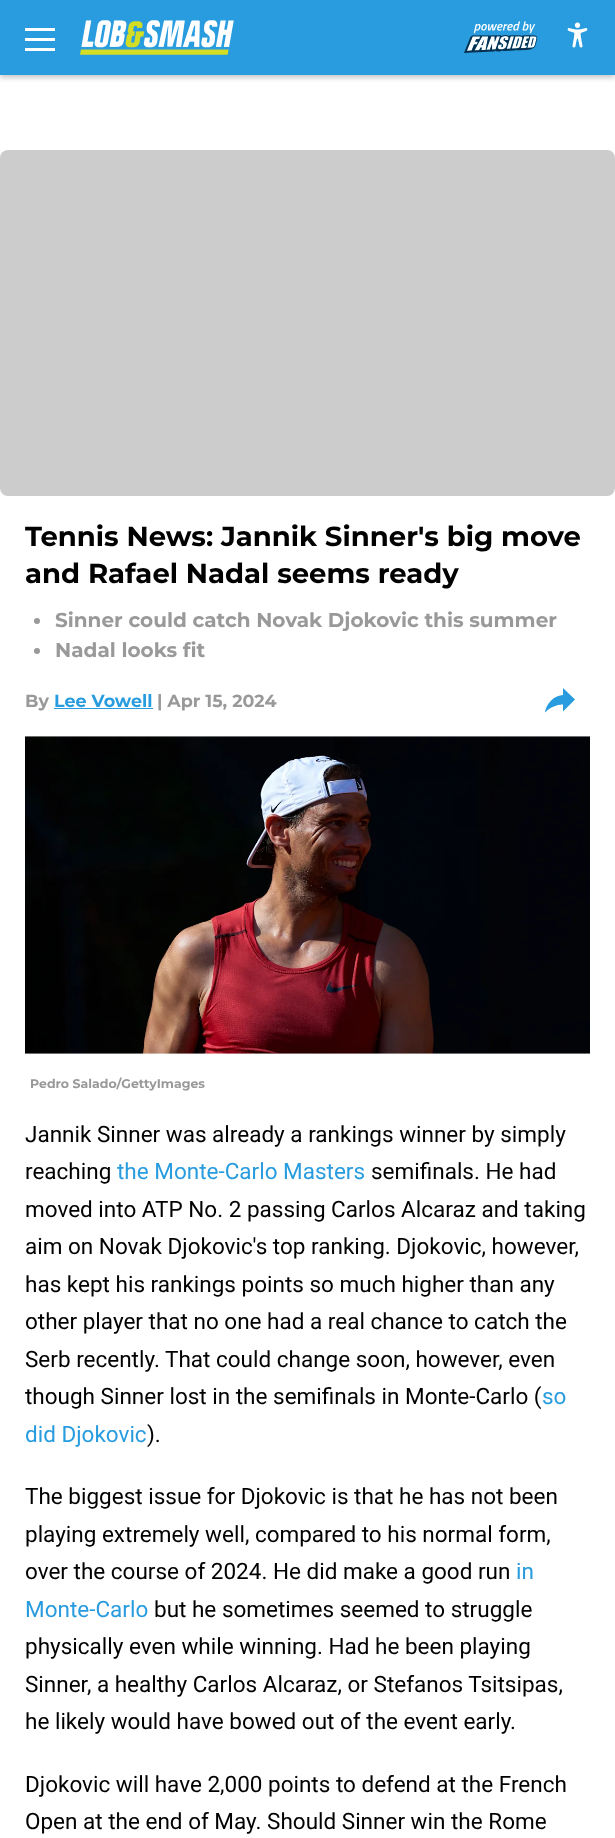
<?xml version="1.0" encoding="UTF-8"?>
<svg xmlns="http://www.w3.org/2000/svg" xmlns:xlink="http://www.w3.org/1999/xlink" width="615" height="1838">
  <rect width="100%" height="100%" fill="#ffffff" />
  <rect y="3" width="615" height="75" fill="#000000" fill-opacity="0.2" filter="blur(2.5px)" />
  <rect width="615" height="75" fill="#289cde" />
  <rect x="25" y="28" width="30" height="3" fill="#ffffff" />
  <rect x="25" y="38" width="30" height="3" fill="#ffffff" />
  <rect x="25" y="48" width="30" height="3" fill="#ffffff" />
  <image x="80" y="20" width="154" height="35" xlink:href="image1.png" />
  <image x="464" y="21" width="74" height="32" xlink:href="image2.png" />
  <image x="567" y="22" width="21" height="26" xlink:href="image3.png" />
  <rect y="150" width="615" height="346" rx="8" fill="#cccccc" />
  <circle cx="37" cy="621" r="3" fill="#999999" />
  <circle cx="37" cy="651" r="3" fill="#999999" />
  <rect x="54" y="708" width="99" height="1" fill="#289cde" />
  <path d="M 563 711.5 v -7 c 0 0 -10 -0.5 -18 8 c 0 0 2 -15.5 18 -17.5 v -7 l 12 11.5 z" fill="#289cde" />
  <rect x="25" y="736" width="565" height="318" fill="#f7f7f7" />
  <image x="25" y="736" width="565" height="318" xlink:href="image4.png" />
  <text x="25" y="546" style="font-family: Montserrat; font-size: 27.5px; font-weight: 100; fill: #000000">Tennis News: Jannik Sinner's big move</text>
  <text x="25" y="583" style="font-family: Montserrat; font-size: 27.5px; font-weight: 100; fill: #000000">and Rafael Nadal seems ready</text>
  <text x="55" y="627" style="font-family: Montserrat; font-size: 20px; font-weight: 100; fill: #999999">Sinner could catch Novak Djokovic this summer</text>
  <text x="55" y="657" style="font-family: Montserrat; font-size: 20px; font-weight: 100; fill: #999999">Nadal looks fit</text>
  <text x="25" y="707" style="font-family: Montserrat; font-size: 17.5px; font-weight: 100; fill: #999999">By</text>
  <text x="54" y="707" style="font-family: Montserrat; font-size: 17.5px; font-weight: 100; fill: #289cde">Lee Vowell</text>
  <text x="157" y="707" style="font-family: Montserrat; font-size: 17.5px; font-weight: 100; fill: #999999">| Apr 15, 2024</text>
  <text x="30" y="1088" style="font-family: Montserrat; font-size: 12.5px; font-weight: 100; fill: #999999">Pedro Salado/GettyImages</text>
  <text x="25" y="1142" style="font-family: Roboto; font-size: 22.5px; fill: #000000">Jannik Sinner was already a rankings winner by simply</text>
  <text x="25" y="1179" style="font-family: Roboto; font-size: 22.5px; fill: #000000">reaching</text>
  <text x="117" y="1179" style="font-family: Roboto; font-size: 22.5px; fill: #289cde">the Monte-Carlo Masters</text>
  <text x="371" y="1179" style="font-family: Roboto; font-size: 22.5px; fill: #000000">semifinals. He had</text>
  <text x="25" y="1217" style="font-family: Roboto; font-size: 22.5px; fill: #000000">moved into ATP No. 2 passing Carlos Alcaraz and taking</text>
  <text x="25" y="1254" style="font-family: Roboto; font-size: 22.5px; fill: #000000">aim on Novak Djokovic's top ranking. Djokovic, however,</text>
  <text x="25" y="1292" style="font-family: Roboto; font-size: 22.5px; fill: #000000">has kept his rankings points so much higher than any</text>
  <text x="25" y="1329" style="font-family: Roboto; font-size: 22.5px; fill: #000000">other player that no one had a real chance to catch the</text>
  <text x="25" y="1367" style="font-family: Roboto; font-size: 22.5px; fill: #000000">Serb recently. That could change soon, however, even</text>
  <text x="25" y="1404" style="font-family: Roboto; font-size: 22.5px; fill: #000000">though Sinner lost in the semifinals in Monte-Carlo (</text>
  <text x="542" y="1404" style="font-family: Roboto; font-size: 22.5px; fill: #289cde">so</text>
  <text x="25" y="1442" style="font-family: Roboto; font-size: 22.5px; fill: #289cde">did Djokovic</text>
  <text x="147" y="1442" style="font-family: Roboto; font-size: 22.5px; fill: #000000">).</text>
  <text x="25" y="1504" style="font-family: Roboto; font-size: 22.5px; fill: #000000">The biggest issue for Djokovic is that he has not been</text>
  <text x="25" y="1542" style="font-family: Roboto; font-size: 22.5px; fill: #000000">playing extremely well, compared to his normal form,</text>
  <text x="25" y="1579" style="font-family: Roboto; font-size: 22.5px; fill: #000000">over the course of 2024. He did make a good run</text>
  <text x="516" y="1579" style="font-family: Roboto; font-size: 22.5px; fill: #289cde">in</text>
  <text x="25" y="1617" style="font-family: Roboto; font-size: 22.5px; fill: #289cde">Monte-Carlo</text>
  <text x="154" y="1617" style="font-family: Roboto; font-size: 22.5px; fill: #000000">but he sometimes seemed to struggle</text>
  <text x="25" y="1654" style="font-family: Roboto; font-size: 22.5px; fill: #000000">physically even while winning. Had he been playing</text>
  <text x="25" y="1692" style="font-family: Roboto; font-size: 22.5px; fill: #000000">Sinner, a healthy Carlos Alcaraz, or Stefanos Tsitsipas,</text>
  <text x="25" y="1729" style="font-family: Roboto; font-size: 22.5px; fill: #000000">he likely would have bowed out of the event early.</text>
  <text x="25" y="1792" style="font-family: Roboto; font-size: 22.5px; fill: #000000">Djokovic will have 2,000 points to defend at the French</text>
  <text x="25" y="1829" style="font-family: Roboto; font-size: 22.5px; fill: #000000">Open at the end of May. Should Sinner win the Rome</text>
</svg>
